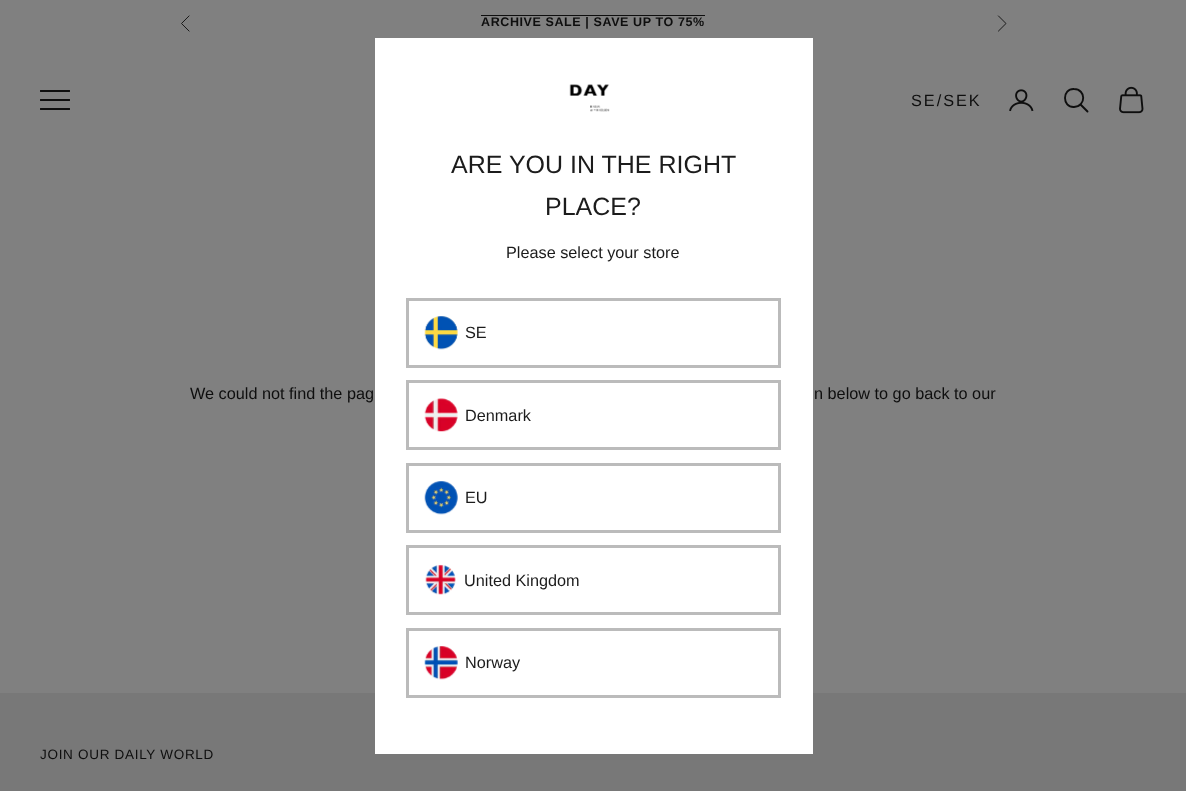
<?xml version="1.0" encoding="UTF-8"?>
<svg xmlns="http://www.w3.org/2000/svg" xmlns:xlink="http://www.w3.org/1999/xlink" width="1186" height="791">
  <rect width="100%" height="100%" fill="#808080" />
  <path d="M 189 16 l -7.5 7.5 l 7.5 7.5" fill="none" stroke="#0e0e0e" stroke-width="0.9" stroke-linecap="square" />
  <rect x="481" y="15" width="224" height="1" fill="#0e0e0e" />
  <path d="M 998.5 31 l 7.5 -7.5 l -7.5 -7.5" fill="none" stroke="#0e0e0e" stroke-width="0.9" stroke-linecap="square" />
  <path d="M 41 109 h 28 m -28 -9 h 28 m -28 -9 h 28" fill="none" stroke="#0e0e0e" stroke-width="1.9" stroke-linecap="square" />
  <image x="1009" y="89" width="25" height="23" xlink:href="image1.png" />
  <path d="M 1074 89 c -12 -0.5 -12 18.5 0 18 c 12.5 -0.5 12 -18 0 -18 z" fill="none" stroke="#0e0e0e" stroke-width="1.9" />
  <path d="M 1081 105 l 6.5 6.5" fill="none" stroke="#0e0e0e" stroke-width="1.9" stroke-linecap="round" />
  <image x="1119" y="86" width="25" height="28" xlink:href="image2.png" />
  <rect y="693" width="1186" height="98" fill="#787878" />
  <rect x="375" y="38" width="438" height="716" fill="#ffffff" />
  <image x="569" y="84" width="41" height="28" xlink:href="image3.png" />
  <rect x="407.5" y="299.5" width="372" height="67" fill="none" stroke="#bbbbbb" stroke-width="3" />
  <image x="424" y="316" width="34" height="34" xlink:href="image4.png" />
  <rect x="407.5" y="381.5" width="372" height="67" fill="none" stroke="#bbbbbb" stroke-width="3" />
  <image x="424" y="398" width="34" height="34" xlink:href="image5.png" />
  <rect x="407.5" y="464.5" width="372" height="67" fill="none" stroke="#bbbbbb" stroke-width="3" />
  <image x="424" y="481" width="34" height="34" xlink:href="image6.png" />
  <rect x="407.5" y="546.5" width="372" height="67" fill="none" stroke="#bbbbbb" stroke-width="3" />
  <image x="425" y="564" width="31" height="31" xlink:href="image7.png" />
  <rect x="407.5" y="629.5" width="372" height="67" fill="none" stroke="#bbbbbb" stroke-width="3" />
  <image x="424" y="646" width="34" height="34" xlink:href="image8.png" />
  <text x="481" y="26" style="font-family: Liberation Sans; font-size: 12.5px; font-weight: bold; letter-spacing: 0.6px; fill: #0e0e0e">ARCHIVE SALE | SAVE UP TO 75%</text>
  <text x="911" y="106" style="font-family: Liberation Sans; font-size: 16.25px; letter-spacing: 2px; fill: #0e0e0e">SE/SEK</text>
  <text x="451" y="173" style="font-family: Liberation Sans; font-size: 25px; fill: #1c1c1c">ARE YOU IN THE RIGHT</text>
  <text x="545" y="215" style="font-family: Liberation Sans; font-size: 25px; fill: #1c1c1c">PLACE?</text>
  <text x="506" y="258" style="font-family: Liberation Sans; font-size: 16.25px; fill: #1c1c1c">Please select your store</text>
  <text x="465" y="338" style="font-family: Liberation Sans; font-size: 16.25px; fill: #1c1c1c">SE</text>
  <text x="465" y="421" style="font-family: Liberation Sans; font-size: 16.25px; fill: #1c1c1c">Denmark</text>
  <text x="465" y="503" style="font-family: Liberation Sans; font-size: 16.25px; fill: #1c1c1c">EU</text>
  <text x="464" y="586" style="font-family: Liberation Sans; font-size: 16.25px; fill: #1c1c1c">United Kingdom</text>
  <text x="465" y="668" style="font-family: Liberation Sans; font-size: 16.25px; fill: #1c1c1c">Norway</text>
  <text x="190" y="399" style="font-family: Liberation Sans; font-size: 16.25px; fill: #0e0e0e">We could not find the pag</text>
  <text x="814" y="399" style="font-family: Liberation Sans; font-size: 16.25px; fill: #0e0e0e">n below to go back to our</text>
  <text x="40" y="759" style="font-family: Liberation Sans; font-size: 13.5px; letter-spacing: 0.7px; fill: #0e0e0e">JOIN OUR DAILY WORLD</text>
</svg>
